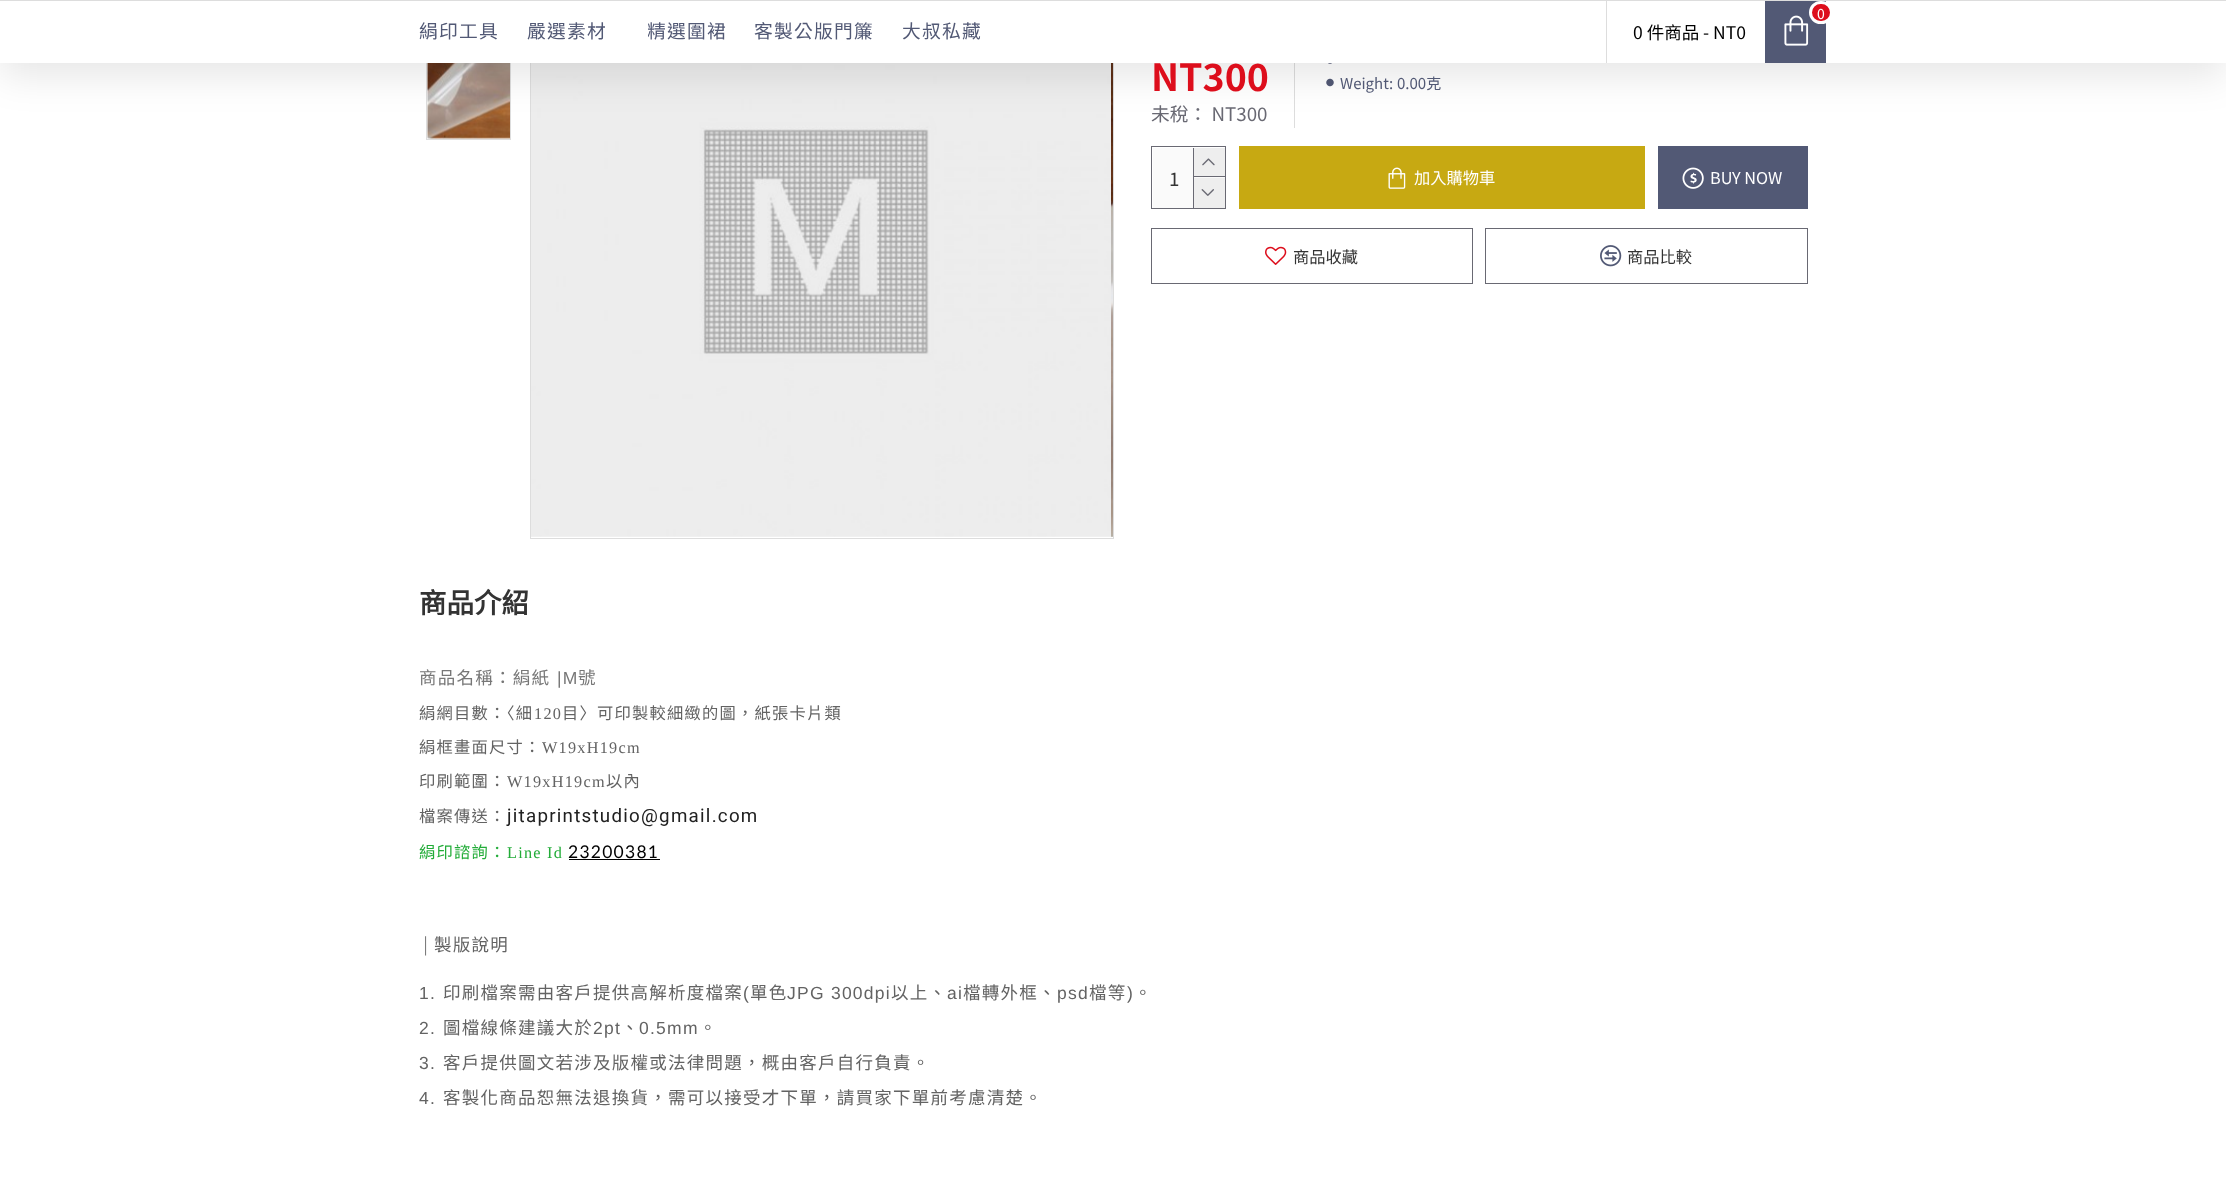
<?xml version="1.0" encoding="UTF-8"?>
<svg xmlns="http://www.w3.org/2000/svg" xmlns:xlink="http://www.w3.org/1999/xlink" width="2226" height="1186">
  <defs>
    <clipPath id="clip1"><rect x="648" y="18" width="80" height="27" /></clipPath>
  </defs>
  <rect width="100%" height="100%" fill="#ffffff" />
  <rect x="426.5" y="54.5" width="84" height="85" fill="none" stroke="#dddddd" />
  <image x="427" y="63" width="83" height="76" xlink:href="image2.png" />
  <rect x="530.5" y="-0.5" width="583" height="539" fill="none" stroke="#dddddd" />
  <image x="531" y="63" width="580" height="474" xlink:href="image3.png" />
  <image x="1111" y="63" width="2" height="474" xlink:href="image4.png" />
  <rect x="1294" y="63" width="1" height="65" fill="#dddddd" />
  <image x="1328" y="63" width="4" height="1" xlink:href="image5.png" />
  <image x="1326" y="78" width="8" height="9" xlink:href="image6.png" />
  <rect y="13" width="2226" height="62" fill="#000000" fill-opacity="0.1" filter="blur(19px)" />
  <rect y="1" width="2226" height="62" fill="#ffffff" />
  <rect width="2226" height="1" fill="#dddddd" />
  <rect x="1606" width="1" height="63" fill="#dddddd" />
  <rect x="1765" y="1" width="61" height="62" fill="#525975" />
  <image x="1784" y="15" width="25" height="31" xlink:href="image1.png" />
  <rect x="1810.5" y="2.5" width="21" height="20" rx="10" fill="#dd0e1c" stroke="#ffffff" stroke-width="3" />
  <rect x="1151.5" y="146.5" width="74" height="62" fill="none" stroke="#696973" />
  <rect x="1153" y="148" width="72" height="60" fill="#fafafa" />
  <rect x="1193" y="148" width="1" height="60" fill="#696973" />
  <rect x="1194" y="148" width="31" height="28" fill="#eeeeee" />
  <rect x="1194" y="176" width="31" height="1" fill="#696973" />
  <image x="1202" y="158" width="13" height="8" xlink:href="image7.png" />
  <rect x="1194" y="178" width="31" height="30" fill="#eeeeee" />
  <image x="1201" y="189" width="13" height="7" xlink:href="image8.png" />
  <rect x="1239" y="146" width="406" height="63" fill="#c7a912" />
  <image x="1388" y="167" width="18" height="22" xlink:href="image9.png" />
  <rect x="1658" y="146" width="150" height="63" fill="#525975" />
  <image x="1682" y="167" width="22" height="22" xlink:href="image10.png" />
  <rect x="1151.5" y="228.5" width="321" height="55" fill="none" stroke="#696973" />
  <image x="1265" y="246" width="22" height="19" xlink:href="image11.png" />
  <rect x="1485.5" y="228.5" width="322" height="55" fill="none" stroke="#696973" />
  <image x="1600" y="245" width="22" height="22" xlink:href="image12.png" />
  <rect x="569" y="859" width="91" height="1" fill="#000000" />
  <text x="419" y="38" style="font-family: Noto Sans TC; font-size: 18.75px; letter-spacing: 1.25px; fill: #525975">絹印工具</text>
  <text x="527" y="38" style="font-family: Noto Sans TC; font-size: 18.75px; letter-spacing: 1.25px; fill: #525975">嚴選素材</text>
  <g clip-path="url(#clip1)">
    <text x="647" y="38" style="font-family: Noto Sans TC; font-size: 18.75px; letter-spacing: 1.25px; fill: #525975">精選圍裙</text>
  </g>
  <text x="754" y="38" style="font-family: Noto Sans TC; font-size: 18.75px; letter-spacing: 1.25px; fill: #525975">客製公版門簾</text>
  <text x="902" y="38" style="font-family: Noto Sans TC; font-size: 18.75px; letter-spacing: 1.25px; fill: #525975">大叔私藏</text>
  <text x="1817" y="19" style="font-family: Noto Sans TC; font-size: 14px; fill: #ffffff">0</text>
  <text x="1633" y="39" style="font-family: Noto Sans TC; font-size: 17.5px; fill: #000000">0 件商品 - NT0</text>
  <text x="1151" y="91" style="font-family: Noto Sans TC; font-size: 37.5px; font-weight: bold; fill: #dd0e1c">NT300</text>
  <text x="1151" y="121" style="font-family: Noto Sans TC; font-size: 18.75px; fill: #696973">未稅： NT300</text>
  <text x="1340" y="89" style="font-family: Noto Sans TC; font-size: 15px; fill: #525975">Weight:</text>
  <text x="1397" y="89" style="font-family: Noto Sans TC; font-size: 15px; fill: #525975">0.00克</text>
  <text x="1169" y="186" style="font-family: Noto Sans TC; font-size: 18.75px; fill: #333333">1</text>
  <text x="1414" y="184" style="font-family: Noto Sans TC; font-size: 16.25px; fill: #ffffff">加入購物車</text>
  <text x="1710" y="184" style="font-family: Noto Sans TC; font-size: 16.25px; fill: #ffffff">BUY NOW</text>
  <text x="1293" y="263" style="font-family: Noto Sans TC; font-size: 16.25px; fill: #333333">商品收藏</text>
  <text x="1627" y="263" style="font-family: Noto Sans TC; font-size: 16.25px; fill: #333333">商品比較</text>
  <text x="419" y="613" style="font-family: Noto Sans CJK TC; font-size: 27.5px; font-weight: bold; fill: #333333">商品介紹</text>
  <text x="419" y="684" style="font-family: Noto Sans CJK TC; font-size: 17.5px; letter-spacing: 1.25px; fill: #777777">商品名稱：絹紙</text>
  <text x="557" y="684" style="font-family: Liberation Sans; font-size: 17.5px; letter-spacing: 1.25px; fill: #777777">|M</text>
  <text x="578" y="684" style="font-family: Noto Sans CJK TC; font-size: 17.5px; letter-spacing: 1.25px; fill: #777777">號</text>
  <text x="419" y="719" style="font-family: Noto Sans CJK TC; font-size: 16.25px; letter-spacing: 1.25px; fill: #636363">絹網目數：〈細</text>
  <text x="534" y="719" style="font-family: Liberation Serif; font-size: 16.25px; letter-spacing: 1.25px; fill: #636363">120</text>
  <text x="562" y="719" style="font-family: Noto Sans CJK TC; font-size: 16.25px; letter-spacing: 1.25px; fill: #636363">目〉可印製較細緻的圖，紙張卡片類</text>
  <text x="419" y="753" style="font-family: Noto Sans CJK TC; font-size: 16.25px; letter-spacing: 1.25px; fill: #636363">絹框畫面尺寸：</text>
  <text x="542" y="753" style="font-family: Liberation Serif; font-size: 16.25px; letter-spacing: 1.25px; fill: #636363">W19xH19cm</text>
  <text x="419" y="787" style="font-family: Noto Sans CJK TC; font-size: 16.25px; letter-spacing: 1.25px; fill: #636363">印刷範圍：</text>
  <text x="507" y="787" style="font-family: Liberation Serif; font-size: 16.25px; letter-spacing: 1.25px; fill: #636363">W19xH19cm</text>
  <text x="606" y="787" style="font-family: Noto Sans CJK TC; font-size: 16.25px; letter-spacing: 1.25px; fill: #636363">以內</text>
  <text x="419" y="822" style="font-family: Noto Sans CJK TC; font-size: 16.25px; letter-spacing: 1.25px; fill: #636363">檔案傳送：</text>
  <text x="507" y="822" style="font-family: Roboto; font-size: 18.75px; letter-spacing: 1.25px; fill: #212121">jitaprintstudio@gmail.com</text>
  <text x="419" y="858" style="font-family: Noto Sans CJK TC; font-size: 16.25px; letter-spacing: 1.25px; fill: #22ac38">絹印諮詢：</text>
  <text x="507" y="858" style="font-family: Liberation Serif; font-size: 16.25px; letter-spacing: 1.25px; fill: #22ac38">Line Id</text>
  <text x="568" y="858" style="font-family: Lato; font-size: 17.5px; letter-spacing: 1.25px; fill: #000000">23200381</text>
  <text x="419" y="951" style="font-family: Lato; font-size: 17.5px; letter-spacing: 1.25px; fill: #777777">│</text>
  <text x="434" y="951" style="font-family: Noto Sans CJK TC; font-size: 17.5px; letter-spacing: 1.25px; fill: #636363">製版說明</text>
  <text x="419" y="999" style="font-family: Liberation Sans; font-size: 17.5px; letter-spacing: 1.25px; fill: #636363">1.</text>
  <text x="443" y="999" style="font-family: Noto Sans CJK TC; font-size: 17.5px; letter-spacing: 1.25px; fill: #636363">印刷檔案需由客戶提供高解析度檔案</text>
  <text x="743" y="999" style="font-family: Liberation Sans; font-size: 17.5px; letter-spacing: 1.25px; fill: #636363">(</text>
  <text x="750" y="999" style="font-family: Noto Sans CJK TC; font-size: 17.5px; letter-spacing: 1.25px; fill: #636363">單色</text>
  <text x="787" y="999" style="font-family: Liberation Sans; font-size: 17.5px; letter-spacing: 1.25px; fill: #636363">JPG 300dpi</text>
  <text x="891" y="999" style="font-family: Noto Sans CJK TC; font-size: 17.5px; letter-spacing: 1.25px; fill: #636363">以上、</text>
  <text x="947" y="999" style="font-family: Liberation Sans; font-size: 17.5px; letter-spacing: 1.25px; fill: #636363">ai</text>
  <text x="963" y="999" style="font-family: Noto Sans CJK TC; font-size: 17.5px; letter-spacing: 1.25px; fill: #636363">檔轉外框、</text>
  <text x="1057" y="999" style="font-family: Liberation Sans; font-size: 17.5px; letter-spacing: 1.25px; fill: #636363">psd</text>
  <text x="1089" y="999" style="font-family: Noto Sans CJK TC; font-size: 17.5px; letter-spacing: 1.25px; fill: #636363">檔等</text>
  <text x="1127" y="999" style="font-family: Liberation Sans; font-size: 17.5px; letter-spacing: 1.25px; fill: #636363">)</text>
  <text x="1134" y="999" style="font-family: Noto Sans CJK TC; font-size: 17.5px; letter-spacing: 1.25px; fill: #636363">。</text>
  <text x="419" y="1034" style="font-family: Liberation Sans; font-size: 17.5px; letter-spacing: 1.25px; fill: #636363">2.</text>
  <text x="443" y="1034" style="font-family: Noto Sans CJK TC; font-size: 17.5px; letter-spacing: 1.25px; fill: #636363">圖檔線條建議大於</text>
  <text x="593" y="1034" style="font-family: Liberation Sans; font-size: 17.5px; letter-spacing: 1.25px; fill: #636363">2pt</text>
  <text x="621" y="1034" style="font-family: Noto Sans CJK TC; font-size: 17.5px; letter-spacing: 1.25px; fill: #636363">、</text>
  <text x="639" y="1034" style="font-family: Liberation Sans; font-size: 17.5px; letter-spacing: 1.25px; fill: #636363">0.5mm</text>
  <text x="699" y="1034" style="font-family: Noto Sans CJK TC; font-size: 17.5px; letter-spacing: 1.25px; fill: #636363">。</text>
  <text x="419" y="1069" style="font-family: Liberation Sans; font-size: 17.5px; letter-spacing: 1.25px; fill: #636363">3.</text>
  <text x="443" y="1069" style="font-family: Noto Sans CJK TC; font-size: 17.5px; letter-spacing: 1.25px; fill: #636363">客戶提供圖文若涉及版權或法律問題，概由客戶自行負責。</text>
  <text x="419" y="1104" style="font-family: Liberation Sans; font-size: 17.5px; letter-spacing: 1.25px; fill: #636363">4.</text>
  <text x="443" y="1104" style="font-family: Noto Sans CJK TC; font-size: 17.5px; letter-spacing: 1.25px; fill: #636363">客製化商品恕無法退換貨，需可以接受才下單，請買家下單前考慮清楚。</text>
</svg>
